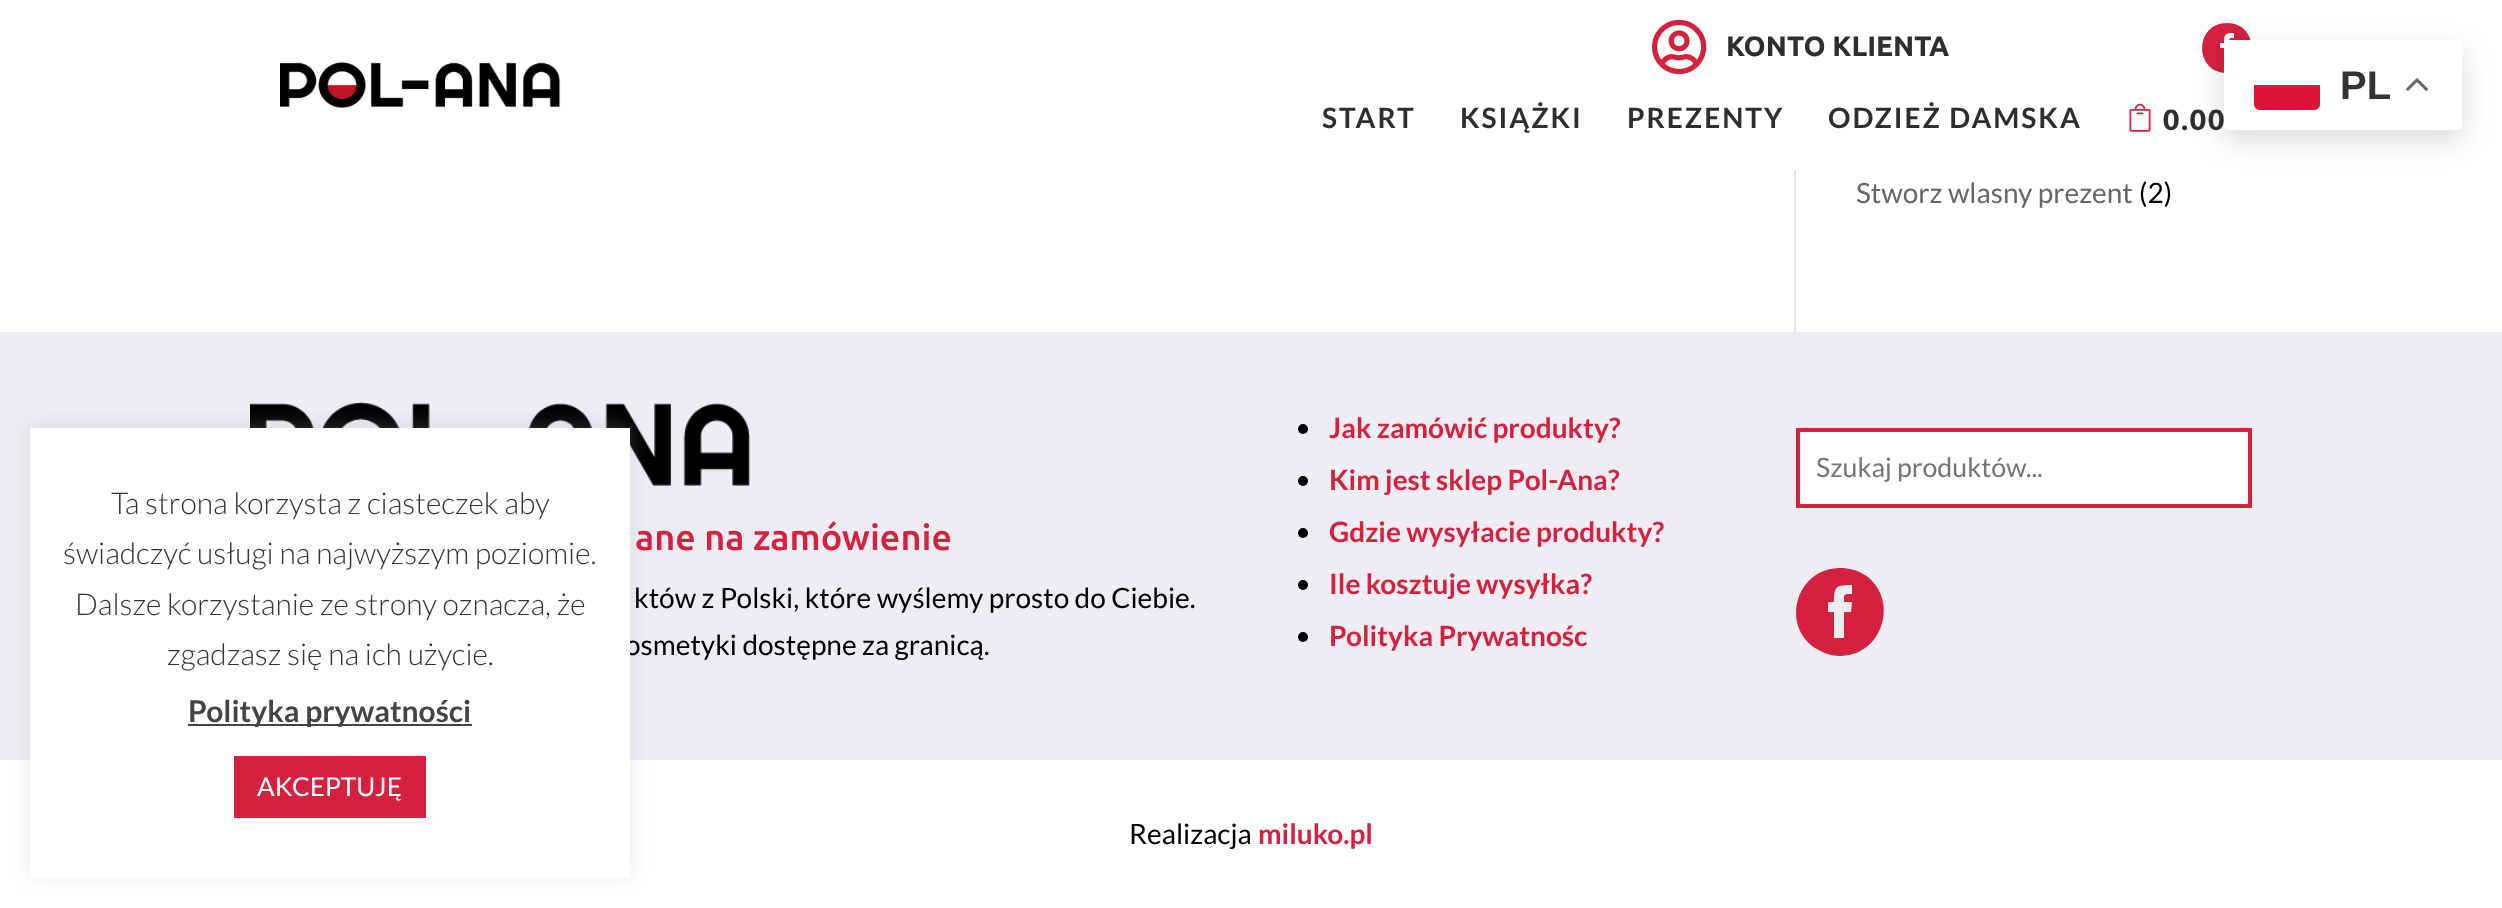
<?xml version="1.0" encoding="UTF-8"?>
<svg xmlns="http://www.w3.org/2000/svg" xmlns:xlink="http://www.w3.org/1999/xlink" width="2502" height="908">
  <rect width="100%" height="100%" fill="#ffffff" />
  <image x="280" y="62" width="281" height="46" xlink:href="image1.png" />
  <image x="1652" y="19" width="55" height="56" xlink:href="image2.png" />
  <path d="M 2227 23 c -33 0 -33 50 0 50 c 33 0 33 -50 0 -50 z m 6 25 h -4 v 15 h -5 v -15 h -4 v -5 h 4 c 0 -9 1 -10 10 -10 v 5 c -5 0 -5 0 -5 5 h 5 z" fill="#d4213d" />
  <image x="2129" y="103" width="22" height="29" xlink:href="image3.png" />
  <rect x="1794" y="170" width="2" height="162" fill="#e2e2e2" />
  <rect y="332" width="2502" height="428" fill="#efedf4" />
  <circle cx="1303" cy="429" r="5" fill="#000000" />
  <circle cx="1303" cy="481" r="5" fill="#000000" />
  <circle cx="1303" cy="533" r="5" fill="#000000" />
  <circle cx="1303" cy="585" r="5" fill="#000000" />
  <circle cx="1303" cy="637" r="5" fill="#000000" />
  <rect x="1798" y="430" width="452" height="76" fill="#ffffff" stroke="#d4213d" stroke-width="4" />
  <path d="M 1840 568 c -43 0 -60 56 -25 80 c 8 5 16 8 25 8 c 43 0 60 -57 25 -81 c -8 -5 -16 -7 -25 -7 z m 11 44 h -7 v 26 h -10 v -26 h -6 v -10 h 6 c 0 -16 2 -17 18 -17 v 9 c -9 0 -8 0 -8 8 h 8 z" fill="#d4213d" />
  <image x="250" y="402" width="500" height="84" xlink:href="image4.png" />
  <rect x="2224" y="50" width="238" height="90" rx="4" fill="#000000" fill-opacity="0.15" filter="blur(15px)" />
  <rect x="2224" y="40" width="238" height="90" rx="4" fill="#ffffff" />
  <path d="M 2254 85 h 66 v 19 c 0 3.5 -2.5 6 -6 6 h -54 c -3.5 0 -6 -2.5 -6 -6 z" fill="#dc143c" />
  <image x="2406" y="78" width="22" height="13" xlink:href="image5.png" />
  <rect x="30" y="426" width="600" height="450" fill="#acabab" fill-opacity="0.3" filter="blur(10px)" />
  <text x="1726" y="56" style="font-family: Ubuntu; font-size: 28px; font-weight: bold; fill: #2d2e30">KONTO KLIENTA</text>
  <text x="1322" y="128" style="font-family: Lato; font-size: 28px; font-weight: bold; letter-spacing: 2px; fill: #2d2e30">START</text>
  <text x="1460" y="128" style="font-family: Lato; font-size: 28px; font-weight: bold; letter-spacing: 2px; fill: #2d2e30">KSIĄŻKI</text>
  <text x="1627" y="128" style="font-family: Lato; font-size: 28px; font-weight: bold; letter-spacing: 2px; fill: #2d2e30">PREZENTY</text>
  <text x="1828" y="128" style="font-family: Lato; font-size: 28px; font-weight: bold; letter-spacing: 2px; fill: #2d2e30">ODZIEŻ DAMSKA</text>
  <text x="2163" y="130" style="font-family: Lato; font-size: 28px; font-weight: 900; letter-spacing: 2px; fill: #2d2e30">0.00</text>
  <text x="1856" y="203" style="font-family: Lato; font-size: 28px; fill: #666666">Stworz wlasny prezent</text>
  <text x="2139" y="203" style="font-family: Lato; font-size: 28px; fill: #000000">(2)</text>
  <text x="1329" y="438" style="font-family: Lato; font-size: 28px; font-weight: bold; fill: #d4213d">Jak zamówić produkty?</text>
  <text x="1329" y="490" style="font-family: Lato; font-size: 28px; font-weight: bold; fill: #d4213d">Kim jest sklep Pol-Ana?</text>
  <text x="1329" y="542" style="font-family: Lato; font-size: 28px; font-weight: bold; fill: #d4213d">Gdzie wysyłacie produkty?</text>
  <text x="1329" y="594" style="font-family: Lato; font-size: 28px; font-weight: bold; fill: #d4213d">Ile kosztuje wysyłka?</text>
  <text x="1329" y="646" style="font-family: Lato; font-size: 28px; font-weight: bold; fill: #d4213d">Polityka Prywatnośc</text>
  <text x="1816" y="477" style="font-family: Lato; font-size: 26.75px; fill: #757575">Szukaj produktów...</text>
  <text x="635" y="550" style="font-family: Ubuntu; font-size: 36px; font-weight: 500; fill: #d4213d">ane na zamówienie</text>
  <text x="634" y="608" style="font-family: Lato; font-size: 28px; fill: #000000">któw z Polski, które wyślemy prosto do Ciebie.</text>
  <text x="625" y="655" style="font-family: Lato; font-size: 28px; fill: #000000">osmetyki dostępne za granicą.</text>
  <text x="1129" y="844" style="font-family: Lato; font-size: 28px; fill: #000000">Realizacja</text>
  <text x="1258" y="844" style="font-family: Lato; font-size: 28px; font-weight: bold; fill: #d4213d">miluko.pl</text>
  <text x="2340" y="99" style="font-family: Liberation Sans; font-size: 40px; font-weight: bold; fill: #333333">PL</text>
  <rect x="30" y="428" width="600" height="450" fill="#ffffff" />
  <text x="111" y="514" style="font-family: Lato; font-size: 30px; font-weight: 300; fill: #333333">Ta strona korzysta z ciasteczek aby</text>
  <text x="63" y="564" style="font-family: Lato; font-size: 30px; font-weight: 300; fill: #333333">świadczyć usługi na najwyższym poziomie.</text>
  <text x="75" y="615" style="font-family: Lato; font-size: 30px; font-weight: 300; fill: #333333">Dalsze korzystanie ze strony oznacza, że</text>
  <text x="167" y="665" style="font-family: Lato; font-size: 30px; font-weight: 300; fill: #333333">zgadzasz się na ich użycie.</text>
  <rect x="188" y="724" width="284" height="2" fill="#444444" />
  <text x="188" y="722" style="font-family: Lato; font-size: 30px; font-weight: bold; fill: #444444">Polityka prywatności</text>
  <rect x="234" y="756" width="192" height="62" fill="#d4213d" />
  <text x="257" y="796" style="font-family: Lato; font-size: 26px; fill: #ffffff">AKCEPTUJĘ</text>
</svg>
